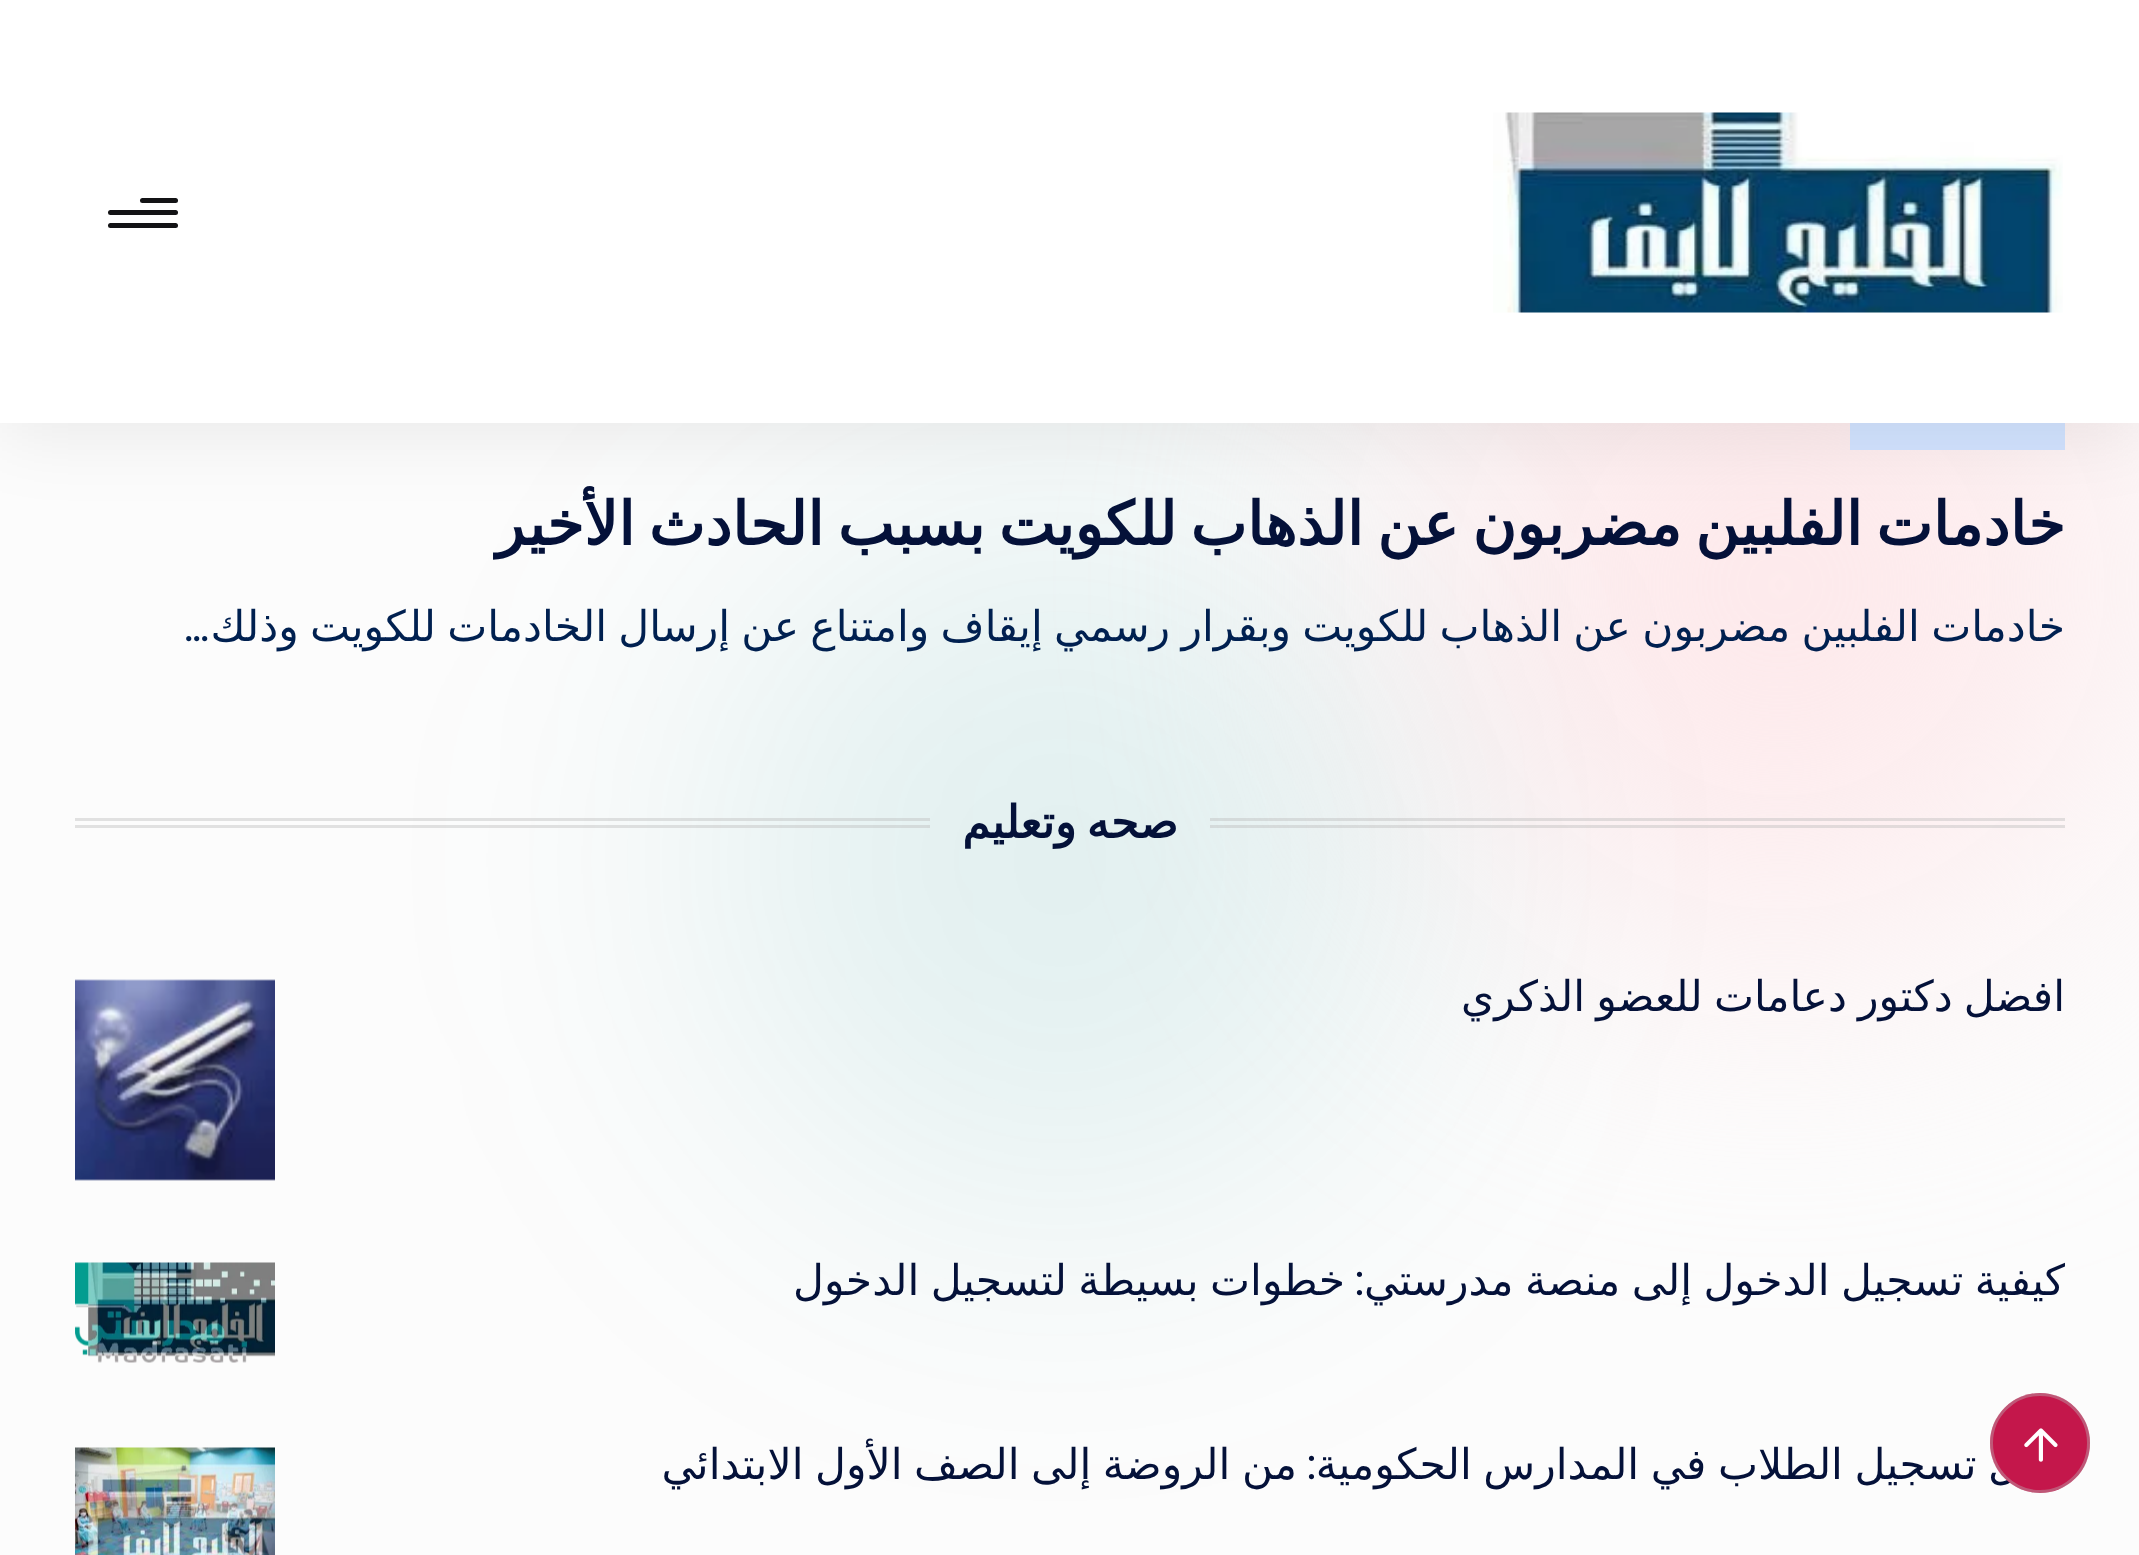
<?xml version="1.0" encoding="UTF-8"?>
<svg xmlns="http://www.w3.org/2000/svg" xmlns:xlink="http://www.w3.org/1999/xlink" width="2139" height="1555">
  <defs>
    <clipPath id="clip1"><rect x="75" y="965" width="1990" height="235" /></clipPath>
    <clipPath id="clip2"><rect x="75" y="1225" width="1990" height="160" /></clipPath>
  </defs>
  <rect width="100%" height="100%" fill="#fcfcfc" />
  <rect x="1420" y="225" width="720" height="720" rx="360" fill="#fde9eb" filter="blur(160px)" />
  <rect x="700" y="500" width="720" height="720" rx="360" fill="#04868b" fill-opacity="0.1" filter="blur(160px)" />
  <rect x="1850" y="423" width="215" height="27" fill="#d2e3ff" />
  <rect y="10" width="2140" height="423" fill="#000000" fill-opacity="0.08" filter="blur(37.5px)" />
  <rect width="2139" height="423" fill="#ffffff" />
  <image x="1493" y="112" width="570" height="201" xlink:href="image1.png" />
  <rect x="108" y="210" width="70" height="5" rx="2.5" fill="#131315" />
  <rect x="140" y="198" width="38" height="5" rx="2.5" fill="#131315" />
  <rect x="108" y="223" width="70" height="5" rx="2.5" fill="#131315" />
  <rect x="1210" y="818" width="855" height="3" fill="#b9b9b9" fill-opacity="0.4" />
  <rect x="1210" y="825" width="855" height="3" fill="#b9b9b9" fill-opacity="0.4" />
  <rect x="75" y="818" width="855" height="3" fill="#b9b9b9" fill-opacity="0.4" />
  <rect x="75" y="825" width="855" height="3" fill="#b9b9b9" fill-opacity="0.4" />
  <image x="75" y="979" width="200" height="202" xlink:href="image2.png" />
  <image x="75" y="1262" width="200" height="101" xlink:href="image3.png" />
  <image x="75" y="1447" width="200" height="108" xlink:href="image4.png" />
  <text x="2065" y="545" word-spacing="-5.25" style="font-family: DejaVu Sans; font-size: 60px; font-weight: bold; direction: rtl; fill: #041139">خادمات الفلبين مضربون عن الذهاب للكويت بسبب الحادث الأخير</text>
  <text x="2065" y="641" word-spacing="-2.25" style="font-family: DejaVu Sans; font-size: 42.5px; direction: rtl; fill: #002050">خادمات الفلبين مضربون عن الذهاب للكويت وبقرار رسمي إيقاف وامتناع عن إرسال الخادمات للكويت وذلك</text>
  <text x="209" y="641" style="font-family: Poppins; font-size: 42.5px; direction: rtl; fill: #002050">…</text>
  <text x="1178" y="838" word-spacing="-4" style="font-family: DejaVu Sans; font-size: 45px; font-weight: bold; direction: rtl; fill: #041139">صحه وتعليم</text>
  <g clip-path="url(#clip1)">
    <text x="2065" y="1011" word-spacing="-2.25" style="font-family: DejaVu Sans; font-size: 42.5px; direction: rtl; fill: #041139">افضل دكتور دعامات للعضو الذكري</text>
  </g>
  <g clip-path="url(#clip2)">
    <text x="2065" y="1295" word-spacing="-2" style="font-family: DejaVu Sans; font-size: 42.5px; direction: rtl; fill: #041139">كيفية تسجيل الدخول إلى منصة مدرستي</text>
  </g>
  <text x="1364" y="1295" style="font-family: Poppins; font-size: 42.5px; direction: rtl; fill: #041139">:</text>
  <text x="1345" y="1295" word-spacing="-2" style="font-family: DejaVu Sans; font-size: 42.5px; direction: rtl; fill: #041139">خطوات بسيطة لتسجيل الدخول</text>
  <text x="2065" y="1479" word-spacing="-2" style="font-family: DejaVu Sans; font-size: 42.5px; direction: rtl; fill: #041139">دليل تسجيل الطلاب في المدارس الحكومية</text>
  <text x="1316" y="1479" style="font-family: Poppins; font-size: 42.5px; direction: rtl; fill: #041139">:</text>
  <text x="1297" y="1479" word-spacing="-2" style="font-family: DejaVu Sans; font-size: 42.5px; direction: rtl; fill: #041139">من الروضة إلى الصف الأول الابتدائي</text>
  <circle cx="2040" cy="1443" r="50" fill="#c4174b" />
  <circle cx="2040" cy="1443" r="48.5" fill="none" stroke="#b9b9b9" stroke-opacity="0.4" stroke-width="3" />
  <image x="2024" y="1428" width="34" height="34" xlink:href="image5.png" />
</svg>
